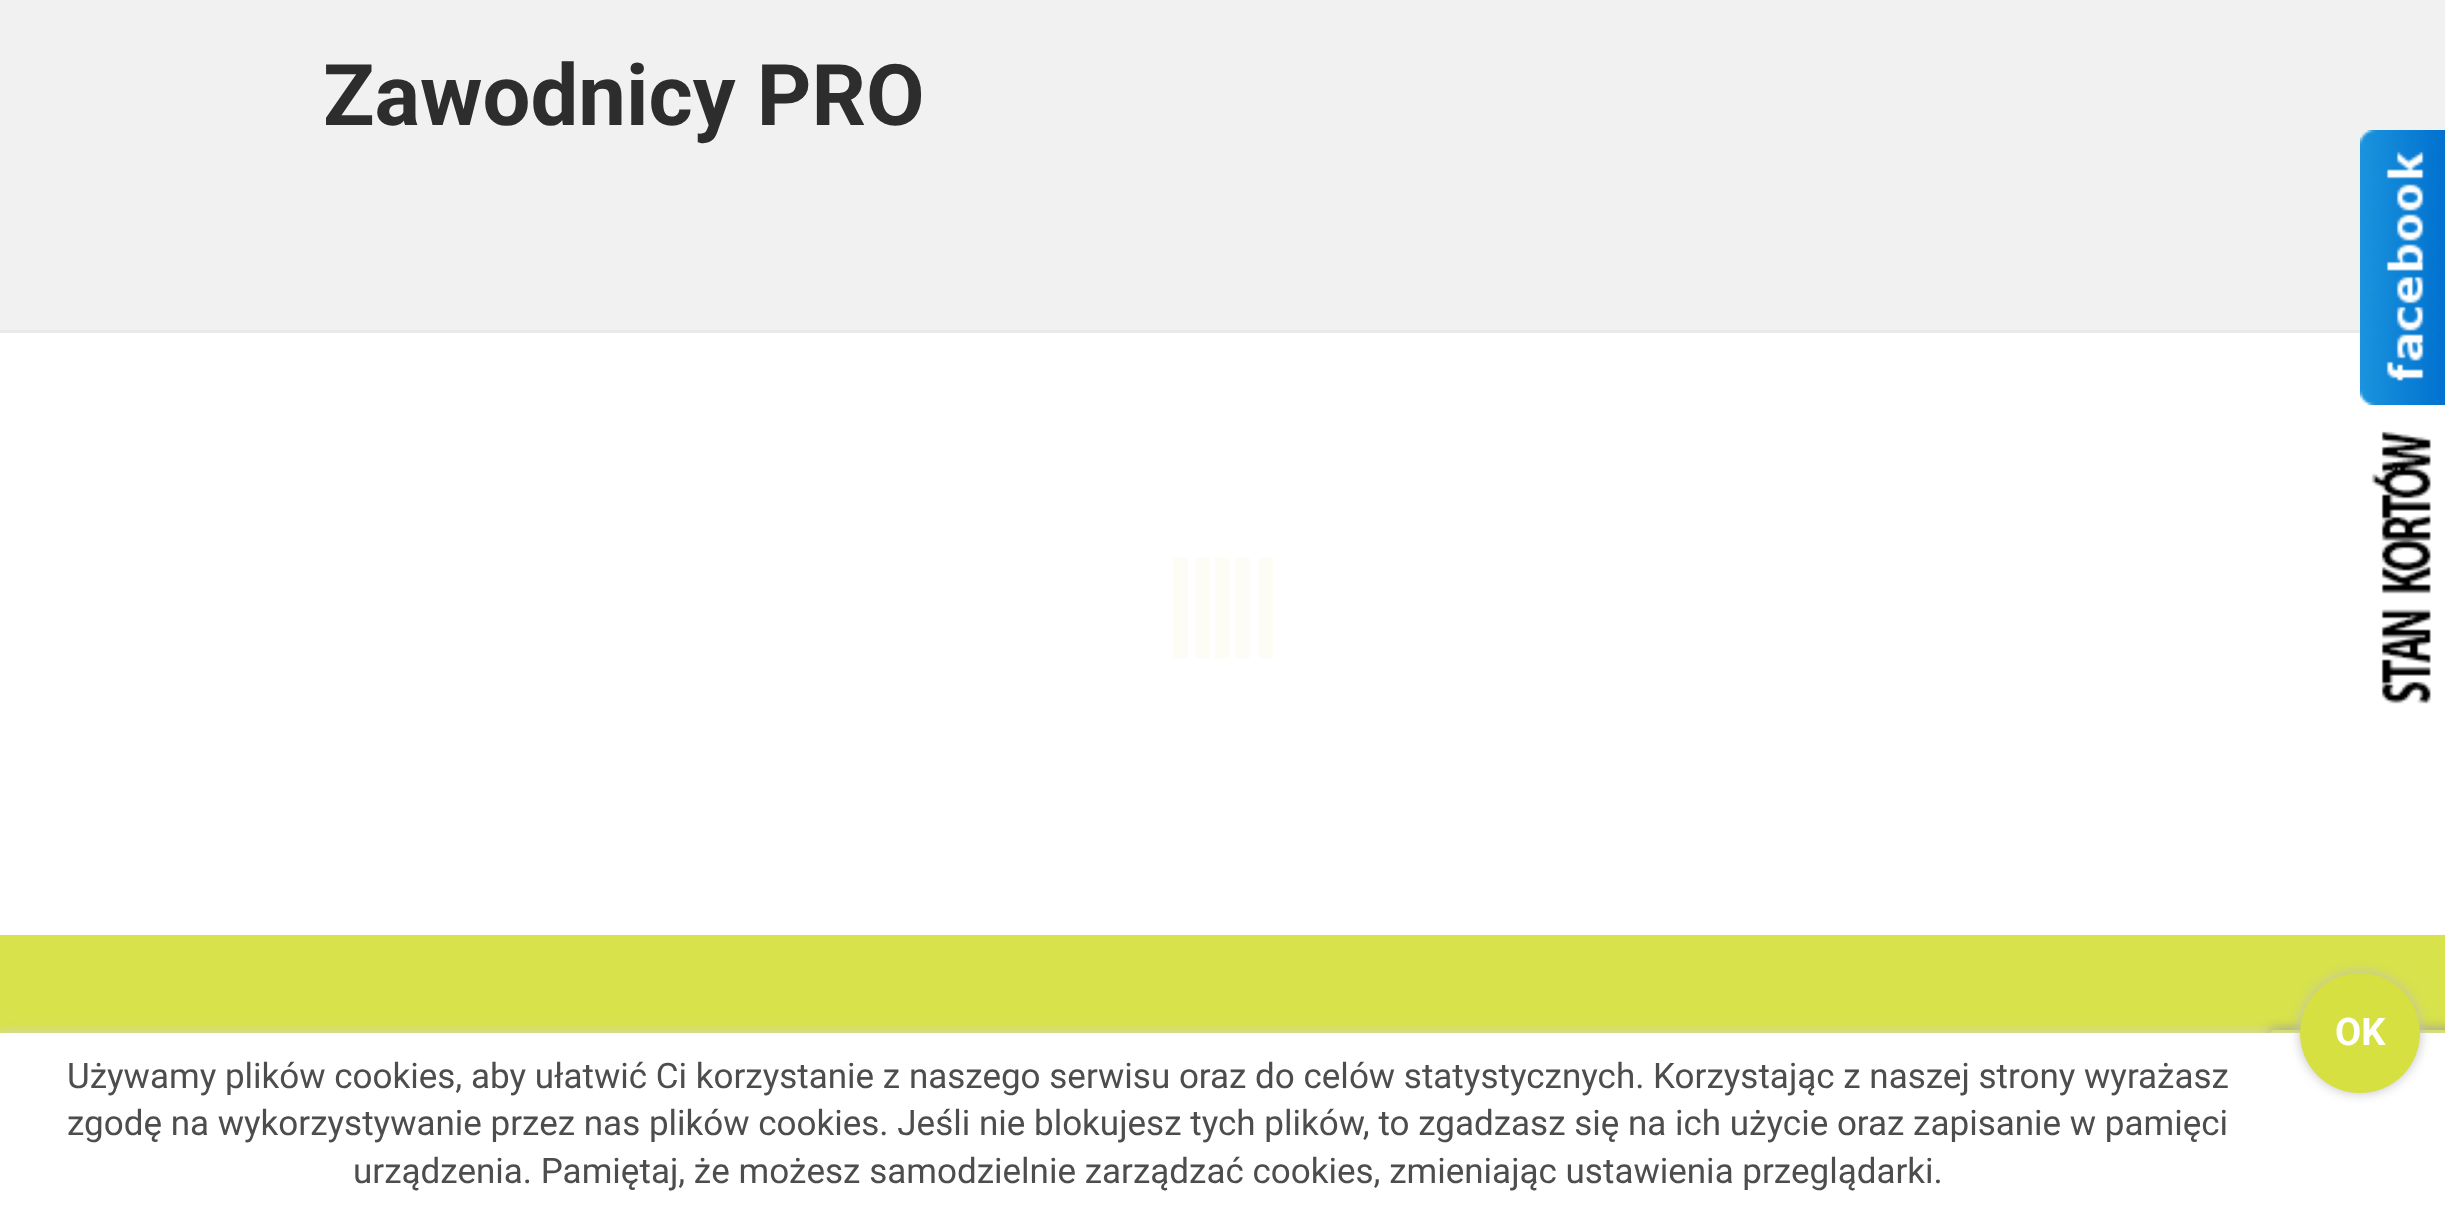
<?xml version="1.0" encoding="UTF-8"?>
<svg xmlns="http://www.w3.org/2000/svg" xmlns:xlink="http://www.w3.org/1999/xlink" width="2445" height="1215">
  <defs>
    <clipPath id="clip1"><path d="M 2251 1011 h 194 v 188 h -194 z m 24 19 h 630 c 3 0 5 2 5 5 v 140 c 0 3 -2 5 -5 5 h -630 c -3 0 -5 -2 -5 -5 v -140 c 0 -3 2 -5 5 -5 z" clip-rule="evenodd" /></clipPath>
  </defs>
  <rect width="100%" height="100%" fill="#ffffff" />
  <rect width="2445" height="330" fill="#f1f1f1" />
  <rect y="330" width="2360" height="3" fill="#e9e9e9" />
  <rect y="935" width="2445" height="98" fill="#d8e24b" />
  <image x="2360" y="130" width="85" height="275" xlink:href="image1.png" />
  <rect x="1173" y="558" width="15" height="100" fill="#fdfdf5" />
  <rect x="1195" y="558" width="15" height="100" fill="#fdfdf5" />
  <rect x="1215" y="558" width="15" height="100" fill="#fdfdf5" />
  <rect x="1235" y="558" width="15" height="100" fill="#fdfdf5" />
  <rect x="1258" y="558" width="15" height="100" fill="#fdfdf5" />
  <image x="2371" y="431" width="60" height="273" xlink:href="image2.png" />
  <g clip-path="url(#clip1)">
    <rect x="2270" y="1030" width="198" height="150" rx="5" fill="#868686" filter="blur(6px)" />
  </g>
  <rect y="1033" width="2445" height="182" fill="#d4d4d4" filter="blur(6px)" />
  <rect y="1033" width="2445" height="182" fill="#ffffff" />
  <rect x="2300" y="973" width="120" height="120" rx="60" fill="#c0c0c0" filter="blur(6px)" />
  <circle cx="2360" cy="1033" r="60" fill="#d6e041" />
  <text x="323" y="125" style="font-family: Roboto; font-size: 85px; font-weight: bold; fill: #2d2d2d">Zawodnicy PRO</text>
  <text x="2335" y="1045" style="font-family: Roboto; font-size: 38px; font-weight: bold; fill: #ffffff">OK</text>
  <text x="67" y="1088" style="font-family: Roboto; font-size: 35px; fill: #4d4d4d">Używamy plików cookies, aby ułatwić Ci korzystanie z naszego serwisu oraz do celów statystycznych. Korzystając z naszej strony wyrażasz</text>
  <text x="67" y="1135" style="font-family: Roboto; font-size: 35px; fill: #4d4d4d">zgodę na wykorzystywanie przez nas plików cookies. Jeśli nie blokujesz tych plików, to zgadzasz się na ich użycie oraz zapisanie w pamięci</text>
  <text x="353" y="1183" style="font-family: Roboto; font-size: 35px; fill: #4d4d4d">urządzenia. Pamiętaj, że możesz samodzielnie zarządzać cookies, zmieniając ustawienia przeglądarki.</text>
</svg>
